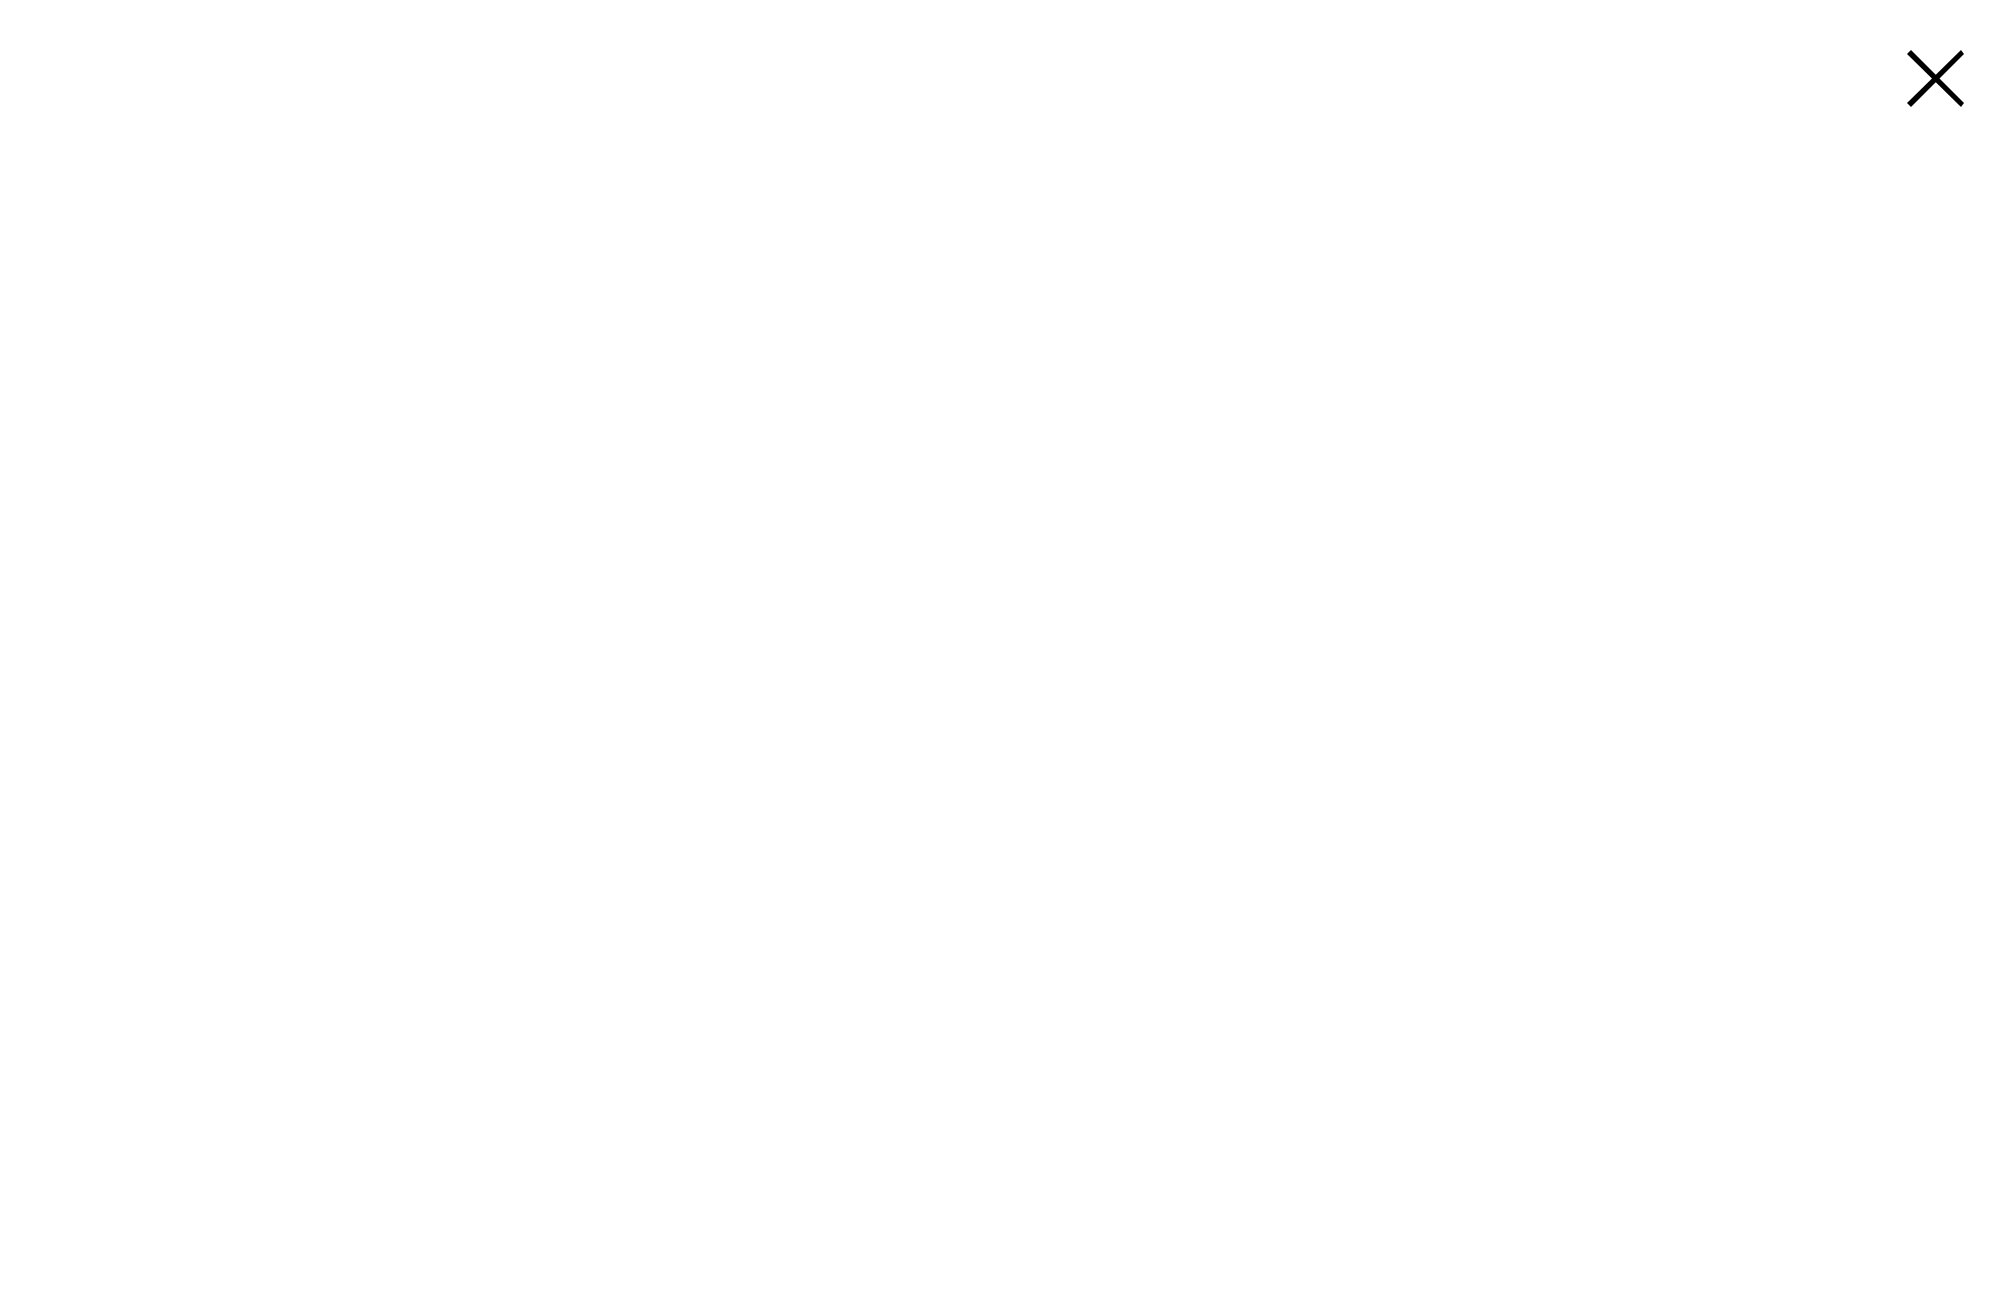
<?xml version="1.0" encoding="UTF-8"?>
<svg xmlns="http://www.w3.org/2000/svg" xmlns:xlink="http://www.w3.org/1999/xlink" width="2015" height="1295">
  <rect width="100%" height="100%" fill="#ffffff" />
  <path d="M 1907 54 l 4 -4 l 53 53 l -3 4 z" fill="#000000" fill-rule="evenodd" />
  <path d="M 1961 50 l 3 4 l -53 53 l -4 -4 z" fill="#000000" fill-rule="evenodd" />
</svg>
